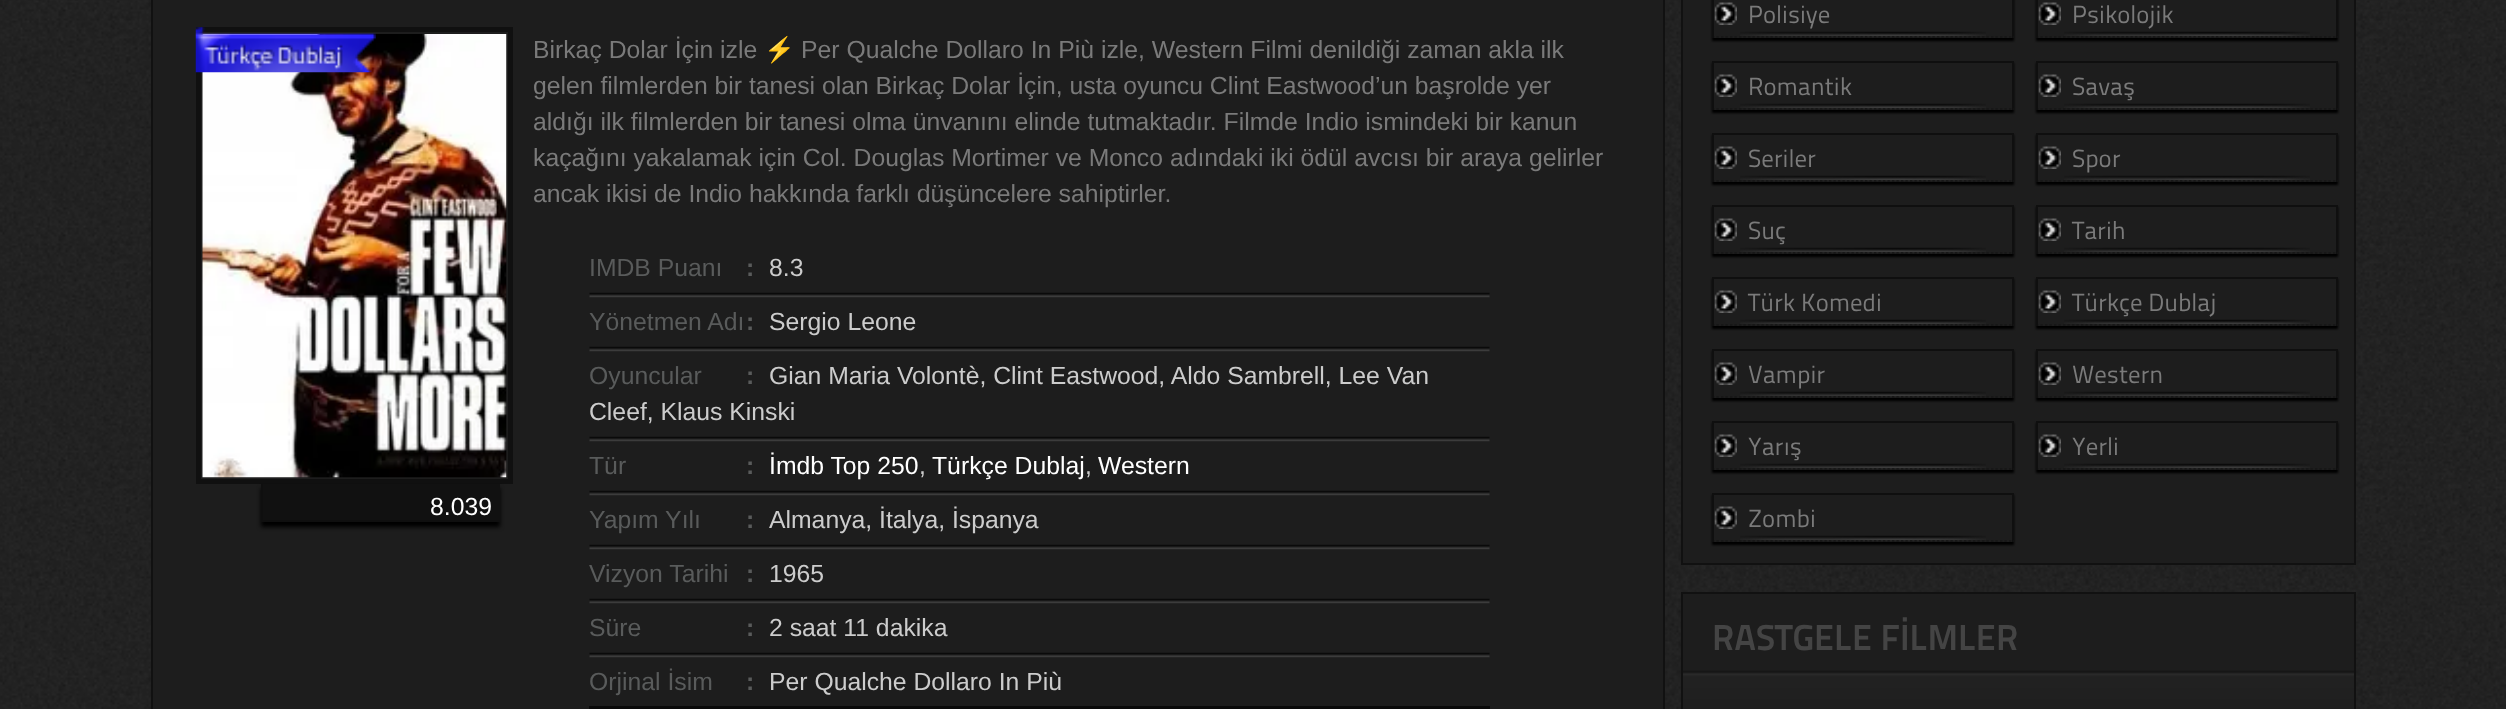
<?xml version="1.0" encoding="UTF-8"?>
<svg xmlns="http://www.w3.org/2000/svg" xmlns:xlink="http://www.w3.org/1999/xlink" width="2506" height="709">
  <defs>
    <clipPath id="clip1"><path d="M 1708 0 h 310 v 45 h -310 z m 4 -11 h 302 v 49 h -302 z" clip-rule="evenodd" /></clipPath>
    <clipPath id="clip2"><path d="M 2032 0 h 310 v 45 h -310 z m 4 -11 h 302 v 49 h -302 z" clip-rule="evenodd" /></clipPath>
    <clipPath id="clip3"><path d="M 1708 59 h 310 v 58 h -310 z m 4 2 h 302 v 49 h -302 z" clip-rule="evenodd" /></clipPath>
    <clipPath id="clip4"><path d="M 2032 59 h 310 v 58 h -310 z m 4 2 h 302 v 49 h -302 z" clip-rule="evenodd" /></clipPath>
    <clipPath id="clip5"><path d="M 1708 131 h 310 v 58 h -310 z m 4 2 h 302 v 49 h -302 z" clip-rule="evenodd" /></clipPath>
    <clipPath id="clip6"><path d="M 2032 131 h 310 v 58 h -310 z m 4 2 h 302 v 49 h -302 z" clip-rule="evenodd" /></clipPath>
    <clipPath id="clip7"><path d="M 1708 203 h 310 v 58 h -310 z m 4 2 h 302 v 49 h -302 z" clip-rule="evenodd" /></clipPath>
    <clipPath id="clip8"><path d="M 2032 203 h 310 v 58 h -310 z m 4 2 h 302 v 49 h -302 z" clip-rule="evenodd" /></clipPath>
    <clipPath id="clip9"><path d="M 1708 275 h 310 v 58 h -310 z m 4 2 h 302 v 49 h -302 z" clip-rule="evenodd" /></clipPath>
    <clipPath id="clip10"><path d="M 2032 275 h 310 v 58 h -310 z m 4 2 h 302 v 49 h -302 z" clip-rule="evenodd" /></clipPath>
    <clipPath id="clip11"><path d="M 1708 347 h 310 v 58 h -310 z m 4 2 h 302 v 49 h -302 z" clip-rule="evenodd" /></clipPath>
    <clipPath id="clip12"><path d="M 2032 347 h 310 v 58 h -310 z m 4 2 h 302 v 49 h -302 z" clip-rule="evenodd" /></clipPath>
    <clipPath id="clip13"><path d="M 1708 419 h 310 v 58 h -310 z m 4 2 h 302 v 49 h -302 z" clip-rule="evenodd" /></clipPath>
    <clipPath id="clip14"><path d="M 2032 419 h 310 v 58 h -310 z m 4 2 h 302 v 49 h -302 z" clip-rule="evenodd" /></clipPath>
    <clipPath id="clip15"><path d="M 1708 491 h 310 v 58 h -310 z m 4 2 h 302 v 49 h -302 z" clip-rule="evenodd" /></clipPath>
  </defs>
  <rect width="100%" height="100%" fill="#ffffff" />
  <image x="0" y="0" width="2506" height="709" xlink:href="image1.png" />
  <rect x="152" y="-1" width="1512" height="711" fill="#1d1d1d" stroke="#111111" stroke-width="2" />
  <rect x="198.5" y="29.5" width="312" height="452" fill="none" stroke="#101010" stroke-width="5" />
  <image x="202" y="34" width="305" height="444" xlink:href="image3.png" />
  <image x="195" y="27" width="181" height="46" xlink:href="image2.png" />
  <rect x="261" y="488" width="239" height="39" fill="#000000" filter="blur(2px)" />
  <rect x="263" y="484" width="237" height="36" fill="#111111" />
  <rect x="261" y="520" width="239" height="2" fill="#0f0f0f" />
  <rect x="261" y="484" width="2" height="38" fill="#0f0f0f" />
  <image x="589" y="292" width="901" height="6" xlink:href="image4.png" />
  <image x="589" y="346" width="901" height="6" xlink:href="image4.png" />
  <image x="589" y="436" width="901" height="6" xlink:href="image4.png" />
  <image x="589" y="490" width="901" height="6" xlink:href="image4.png" />
  <image x="589" y="544" width="901" height="6" xlink:href="image4.png" />
  <image x="589" y="598" width="901" height="6" xlink:href="image4.png" />
  <image x="589" y="652" width="901" height="6" xlink:href="image4.png" />
  <rect x="589" y="706" width="901" height="3" fill="#0a0a0a" />
  <rect x="1682" y="-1" width="673" height="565" fill="#1d1d1d" stroke="#111111" stroke-width="2" />
  <g clip-path="url(#clip1)">
    <rect x="1712" y="-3" width="302" height="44" fill="#000000" filter="blur(1px)" />
  </g>
  <image x="1740" y="31" width="246" height="6" xlink:href="image5.png" />
  <rect x="2012" width="2" height="38" fill="#0f0f0f" />
  <path d="M 1712 37 h 302" fill="none" stroke="#171717" stroke-width="2.2" stroke-dasharray="2.25 2.25" />
  <rect x="1712" width="2" height="38" fill="#0f0f0f" />
  <image x="1714" y="2" width="23" height="23" xlink:href="image6.png" />
  <g clip-path="url(#clip2)">
    <rect x="2036" y="-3" width="302" height="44" fill="#000000" filter="blur(1px)" />
  </g>
  <image x="2064" y="31" width="246" height="6" xlink:href="image7.png" />
  <rect x="2336" width="2" height="38" fill="#0f0f0f" />
  <path d="M 2036 37 h 302" fill="none" stroke="#171717" stroke-width="2.2" stroke-dasharray="2.25 2.25" />
  <rect x="2036" width="2" height="38" fill="#0f0f0f" />
  <image x="2038" y="2" width="23" height="23" xlink:href="image6.png" />
  <g clip-path="url(#clip3)">
    <rect x="1712" y="63" width="302" height="50" fill="#000000" filter="blur(1px)" />
  </g>
  <image x="1740" y="103" width="246" height="6" xlink:href="image5.png" />
  <rect x="1712" y="61" width="302" height="2" fill="#0f0f0f" />
  <rect x="2012" y="61" width="2" height="49" fill="#0f0f0f" />
  <path d="M 1712 109 h 302" fill="none" stroke="#171717" stroke-width="2.2" stroke-dasharray="2.25 2.25" />
  <rect x="1712" y="61" width="2" height="49" fill="#0f0f0f" />
  <image x="1714" y="74" width="23" height="23" xlink:href="image6.png" />
  <g clip-path="url(#clip4)">
    <rect x="2036" y="63" width="302" height="50" fill="#000000" filter="blur(1px)" />
  </g>
  <image x="2064" y="103" width="246" height="6" xlink:href="image7.png" />
  <rect x="2036" y="61" width="302" height="2" fill="#0f0f0f" />
  <rect x="2336" y="61" width="2" height="49" fill="#0f0f0f" />
  <path d="M 2036 109 h 302" fill="none" stroke="#171717" stroke-width="2.2" stroke-dasharray="2.25 2.25" />
  <rect x="2036" y="61" width="2" height="49" fill="#0f0f0f" />
  <image x="2038" y="74" width="23" height="23" xlink:href="image6.png" />
  <g clip-path="url(#clip5)">
    <rect x="1712" y="135" width="302" height="50" fill="#000000" filter="blur(1px)" />
  </g>
  <image x="1740" y="175" width="246" height="6" xlink:href="image5.png" />
  <rect x="1712" y="133" width="302" height="2" fill="#0f0f0f" />
  <rect x="2012" y="133" width="2" height="49" fill="#0f0f0f" />
  <path d="M 1712 181 h 302" fill="none" stroke="#171717" stroke-width="2.2" stroke-dasharray="2.25 2.25" />
  <rect x="1712" y="133" width="2" height="49" fill="#0f0f0f" />
  <image x="1714" y="146" width="23" height="23" xlink:href="image6.png" />
  <g clip-path="url(#clip6)">
    <rect x="2036" y="135" width="302" height="50" fill="#000000" filter="blur(1px)" />
  </g>
  <image x="2064" y="175" width="246" height="6" xlink:href="image7.png" />
  <rect x="2036" y="133" width="302" height="2" fill="#0f0f0f" />
  <rect x="2336" y="133" width="2" height="49" fill="#0f0f0f" />
  <path d="M 2036 181 h 302" fill="none" stroke="#171717" stroke-width="2.2" stroke-dasharray="2.25 2.25" />
  <rect x="2036" y="133" width="2" height="49" fill="#0f0f0f" />
  <image x="2038" y="146" width="23" height="23" xlink:href="image6.png" />
  <g clip-path="url(#clip7)">
    <rect x="1712" y="207" width="302" height="50" fill="#000000" filter="blur(1px)" />
  </g>
  <image x="1740" y="247" width="246" height="6" xlink:href="image5.png" />
  <rect x="1712" y="205" width="302" height="2" fill="#0f0f0f" />
  <rect x="2012" y="205" width="2" height="49" fill="#0f0f0f" />
  <path d="M 1712 253 h 302" fill="none" stroke="#171717" stroke-width="2.2" stroke-dasharray="2.25 2.25" />
  <rect x="1712" y="205" width="2" height="49" fill="#0f0f0f" />
  <image x="1714" y="218" width="23" height="23" xlink:href="image6.png" />
  <g clip-path="url(#clip8)">
    <rect x="2036" y="207" width="302" height="50" fill="#000000" filter="blur(1px)" />
  </g>
  <image x="2064" y="247" width="246" height="6" xlink:href="image7.png" />
  <rect x="2036" y="205" width="302" height="2" fill="#0f0f0f" />
  <rect x="2336" y="205" width="2" height="49" fill="#0f0f0f" />
  <path d="M 2036 253 h 302" fill="none" stroke="#171717" stroke-width="2.2" stroke-dasharray="2.25 2.25" />
  <rect x="2036" y="205" width="2" height="49" fill="#0f0f0f" />
  <image x="2038" y="218" width="23" height="23" xlink:href="image6.png" />
  <g clip-path="url(#clip9)">
    <rect x="1712" y="279" width="302" height="50" fill="#000000" filter="blur(1px)" />
  </g>
  <image x="1740" y="319" width="246" height="6" xlink:href="image5.png" />
  <rect x="1712" y="277" width="302" height="2" fill="#0f0f0f" />
  <rect x="2012" y="277" width="2" height="49" fill="#0f0f0f" />
  <path d="M 1712 325 h 302" fill="none" stroke="#171717" stroke-width="2.2" stroke-dasharray="2.25 2.25" />
  <rect x="1712" y="277" width="2" height="49" fill="#0f0f0f" />
  <image x="1714" y="290" width="23" height="23" xlink:href="image6.png" />
  <g clip-path="url(#clip10)">
    <rect x="2036" y="279" width="302" height="50" fill="#000000" filter="blur(1px)" />
  </g>
  <image x="2064" y="319" width="246" height="6" xlink:href="image7.png" />
  <rect x="2036" y="277" width="302" height="2" fill="#0f0f0f" />
  <rect x="2336" y="277" width="2" height="49" fill="#0f0f0f" />
  <path d="M 2036 325 h 302" fill="none" stroke="#171717" stroke-width="2.2" stroke-dasharray="2.25 2.25" />
  <rect x="2036" y="277" width="2" height="49" fill="#0f0f0f" />
  <image x="2038" y="290" width="23" height="23" xlink:href="image6.png" />
  <g clip-path="url(#clip11)">
    <rect x="1712" y="351" width="302" height="50" fill="#000000" filter="blur(1px)" />
  </g>
  <image x="1740" y="391" width="246" height="6" xlink:href="image5.png" />
  <rect x="1712" y="349" width="302" height="2" fill="#0f0f0f" />
  <rect x="2012" y="349" width="2" height="49" fill="#0f0f0f" />
  <path d="M 1712 397 h 302" fill="none" stroke="#171717" stroke-width="2.2" stroke-dasharray="2.25 2.25" />
  <rect x="1712" y="349" width="2" height="49" fill="#0f0f0f" />
  <image x="1714" y="362" width="23" height="23" xlink:href="image6.png" />
  <g clip-path="url(#clip12)">
    <rect x="2036" y="351" width="302" height="50" fill="#000000" filter="blur(1px)" />
  </g>
  <image x="2064" y="391" width="246" height="6" xlink:href="image7.png" />
  <rect x="2036" y="349" width="302" height="2" fill="#0f0f0f" />
  <rect x="2336" y="349" width="2" height="49" fill="#0f0f0f" />
  <path d="M 2036 397 h 302" fill="none" stroke="#171717" stroke-width="2.2" stroke-dasharray="2.25 2.25" />
  <rect x="2036" y="349" width="2" height="49" fill="#0f0f0f" />
  <image x="2038" y="362" width="23" height="23" xlink:href="image6.png" />
  <g clip-path="url(#clip13)">
    <rect x="1712" y="423" width="302" height="50" fill="#000000" filter="blur(1px)" />
  </g>
  <image x="1740" y="463" width="246" height="6" xlink:href="image5.png" />
  <rect x="1712" y="421" width="302" height="2" fill="#0f0f0f" />
  <rect x="2012" y="421" width="2" height="49" fill="#0f0f0f" />
  <path d="M 1712 469 h 302" fill="none" stroke="#171717" stroke-width="2.2" stroke-dasharray="2.25 2.25" />
  <rect x="1712" y="421" width="2" height="49" fill="#0f0f0f" />
  <image x="1714" y="434" width="23" height="23" xlink:href="image6.png" />
  <g clip-path="url(#clip14)">
    <rect x="2036" y="423" width="302" height="50" fill="#000000" filter="blur(1px)" />
  </g>
  <image x="2064" y="463" width="246" height="6" xlink:href="image7.png" />
  <rect x="2036" y="421" width="302" height="2" fill="#0f0f0f" />
  <rect x="2336" y="421" width="2" height="49" fill="#0f0f0f" />
  <path d="M 2036 469 h 302" fill="none" stroke="#171717" stroke-width="2.2" stroke-dasharray="2.25 2.25" />
  <rect x="2036" y="421" width="2" height="49" fill="#0f0f0f" />
  <image x="2038" y="434" width="23" height="23" xlink:href="image6.png" />
  <g clip-path="url(#clip15)">
    <rect x="1712" y="495" width="302" height="50" fill="#000000" filter="blur(1px)" />
  </g>
  <image x="1740" y="535" width="246" height="6" xlink:href="image5.png" />
  <rect x="1712" y="493" width="302" height="2" fill="#0f0f0f" />
  <rect x="2012" y="493" width="2" height="49" fill="#0f0f0f" />
  <path d="M 1712 541 h 302" fill="none" stroke="#171717" stroke-width="2.2" stroke-dasharray="2.25 2.25" />
  <rect x="1712" y="493" width="2" height="49" fill="#0f0f0f" />
  <image x="1714" y="506" width="23" height="23" xlink:href="image6.png" />
  <image x="1683" y="594" width="671" height="115" xlink:href="image8.png" />
  <rect x="1682" y="593" width="673" height="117" fill="none" stroke="#111111" stroke-width="2" />
  <text x="430" y="515" style="font-family: Liberation Sans; font-size: 24.75px; fill: #ffffff">8.039</text>
  <text x="533" y="58" style="font-family: Liberation Sans; font-size: 24.75px; fill: #7a7a7a">Birkaç Dolar İçin izle</text>
  <text x="764" y="58" style="font-family: Noto Color Emoji; font-size: 24.75px; fill: #7a7a7a">⚡️</text>
  <text x="801" y="58" style="font-family: Liberation Sans; font-size: 24.75px; fill: #7a7a7a">Per Qualche Dollaro In Più izle, Western Filmi denildiği zaman akla ilk</text>
  <text x="533" y="94" style="font-family: Liberation Sans; font-size: 24.75px; fill: #7a7a7a">gelen filmlerden bir tanesi olan Birkaç Dolar İçin, usta oyuncu Clint Eastwood’un başrolde yer</text>
  <text x="533" y="130" style="font-family: Liberation Sans; font-size: 24.75px; fill: #7a7a7a">aldığı ilk filmlerden bir tanesi olma ünvanını elinde tutmaktadır. Filmde Indio ismindeki bir kanun</text>
  <text x="533" y="166" style="font-family: Liberation Sans; font-size: 24.75px; fill: #7a7a7a">kaçağını yakalamak için Col. Douglas Mortimer ve Monco adındaki iki ödül avcısı bir araya gelirler</text>
  <text x="533" y="202" style="font-family: Liberation Sans; font-size: 24.75px; fill: #7a7a7a">ancak ikisi de Indio hakkında farklı düşüncelere sahiptirler.</text>
  <text x="589" y="276" style="font-family: Liberation Sans; font-size: 24.75px; fill: #595b5b">IMDB Puanı</text>
  <text x="746" y="276" style="font-family: Liberation Sans; font-size: 24.75px; font-weight: bold; fill: #595b5b">:</text>
  <text x="769" y="276" style="font-family: Liberation Sans; font-size: 24.75px; fill: #cccccc">8.3</text>
  <text x="589" y="330" style="font-family: Liberation Sans; font-size: 24.75px; fill: #595b5b">Yönetmen Adı</text>
  <text x="746" y="330" style="font-family: Liberation Sans; font-size: 24.75px; font-weight: bold; fill: #595b5b">:</text>
  <text x="769" y="330" style="font-family: Liberation Sans; font-size: 24.75px; fill: #cccccc">Sergio Leone</text>
  <text x="589" y="384" style="font-family: Liberation Sans; font-size: 24.75px; fill: #595b5b">Oyuncular</text>
  <text x="746" y="384" style="font-family: Liberation Sans; font-size: 24.75px; font-weight: bold; fill: #595b5b">:</text>
  <text x="769" y="384" style="font-family: Liberation Sans; font-size: 24.75px; fill: #cccccc">Gian Maria Volontè, Clint Eastwood, Aldo Sambrell, Lee Van</text>
  <text x="589" y="420" style="font-family: Liberation Sans; font-size: 24.75px; fill: #cccccc">Cleef, Klaus Kinski</text>
  <text x="589" y="474" style="font-family: Liberation Sans; font-size: 24.75px; fill: #595b5b">Tür</text>
  <text x="746" y="474" style="font-family: Liberation Sans; font-size: 24.75px; font-weight: bold; fill: #595b5b">:</text>
  <text x="769" y="474" style="font-family: Liberation Sans; font-size: 24.75px; fill: #ffffff">İmdb Top 250</text>
  <text x="919" y="474" style="font-family: Liberation Sans; font-size: 24.75px; fill: #cccccc">,</text>
  <text x="932" y="474" style="font-family: Liberation Sans; font-size: 24.75px; fill: #ffffff">Türkçe Dublaj</text>
  <text x="1085" y="474" style="font-family: Liberation Sans; font-size: 24.75px; fill: #cccccc">,</text>
  <text x="1098" y="474" style="font-family: Liberation Sans; font-size: 24.75px; fill: #ffffff">Western</text>
  <text x="589" y="528" style="font-family: Liberation Sans; font-size: 24.75px; fill: #595b5b">Yapım Yılı</text>
  <text x="746" y="528" style="font-family: Liberation Sans; font-size: 24.75px; font-weight: bold; fill: #595b5b">:</text>
  <text x="769" y="528" style="font-family: Liberation Sans; font-size: 24.75px; fill: #cccccc">Almanya, İtalya, İspanya</text>
  <text x="589" y="582" style="font-family: Liberation Sans; font-size: 24.75px; fill: #595b5b">Vizyon Tarihi</text>
  <text x="746" y="582" style="font-family: Liberation Sans; font-size: 24.75px; font-weight: bold; fill: #595b5b">:</text>
  <text x="769" y="582" style="font-family: Liberation Sans; font-size: 24.75px; fill: #cccccc">1965</text>
  <text x="589" y="636" style="font-family: Liberation Sans; font-size: 24.75px; fill: #595b5b">Süre</text>
  <text x="746" y="636" style="font-family: Liberation Sans; font-size: 24.75px; font-weight: bold; fill: #595b5b">:</text>
  <text x="769" y="636" style="font-family: Liberation Sans; font-size: 24.75px; fill: #cccccc">2 saat 11 dakika</text>
  <text x="589" y="690" style="font-family: Liberation Sans; font-size: 24.75px; fill: #595b5b">Orjinal İsim</text>
  <text x="746" y="690" style="font-family: Liberation Sans; font-size: 24.75px; font-weight: bold; fill: #595b5b">:</text>
  <text x="769" y="690" style="font-family: Liberation Sans; font-size: 24.75px; fill: #cccccc">Per Qualche Dollaro In Più</text>
  <text x="1748" y="23" style="font-family: 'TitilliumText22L'; font-size: 24.75px; fill: #7a7a7a">Polisiye</text>
  <text x="2072" y="23" style="font-family: 'TitilliumText22L'; font-size: 24.75px; fill: #7a7a7a">Psikolojik</text>
  <text x="1748" y="95" style="font-family: 'TitilliumText22L'; font-size: 24.75px; fill: #7a7a7a">Romantik</text>
  <text x="2072" y="95" style="font-family: 'TitilliumText22L'; font-size: 24.75px; fill: #7a7a7a">Savaş</text>
  <text x="1748" y="167" style="font-family: 'TitilliumText22L'; font-size: 24.75px; fill: #7a7a7a">Seriler</text>
  <text x="2072" y="167" style="font-family: 'TitilliumText22L'; font-size: 24.75px; fill: #7a7a7a">Spor</text>
  <text x="1748" y="239" style="font-family: 'TitilliumText22L'; font-size: 24.75px; fill: #7a7a7a">Suç</text>
  <text x="2072" y="239" style="font-family: 'TitilliumText22L'; font-size: 24.75px; fill: #7a7a7a">Tarih</text>
  <text x="1748" y="311" style="font-family: 'TitilliumText22L'; font-size: 24.75px; fill: #7a7a7a">Türk Komedi</text>
  <text x="2072" y="311" style="font-family: 'TitilliumText22L'; font-size: 24.75px; fill: #7a7a7a">Türkçe Dublaj</text>
  <text x="1748" y="383" style="font-family: 'TitilliumText22L'; font-size: 24.75px; fill: #7a7a7a">Vampir</text>
  <text x="2072" y="383" style="font-family: 'TitilliumText22L'; font-size: 24.75px; fill: #7a7a7a">Western</text>
  <text x="1748" y="455" style="font-family: 'TitilliumText22L'; font-size: 24.75px; fill: #7a7a7a">Yarış</text>
  <text x="2072" y="455" style="font-family: 'TitilliumText22L'; font-size: 24.75px; fill: #7a7a7a">Yerli</text>
  <text x="1748" y="527" style="font-family: 'TitilliumText22L'; font-size: 24.75px; fill: #7a7a7a">Zombi</text>
  <text x="1712" y="650" style="font-family: 'TitilliumText22L'; font-size: 36px; font-weight: bold; fill: #444444">RASTGELE FİLMLER</text>
</svg>
